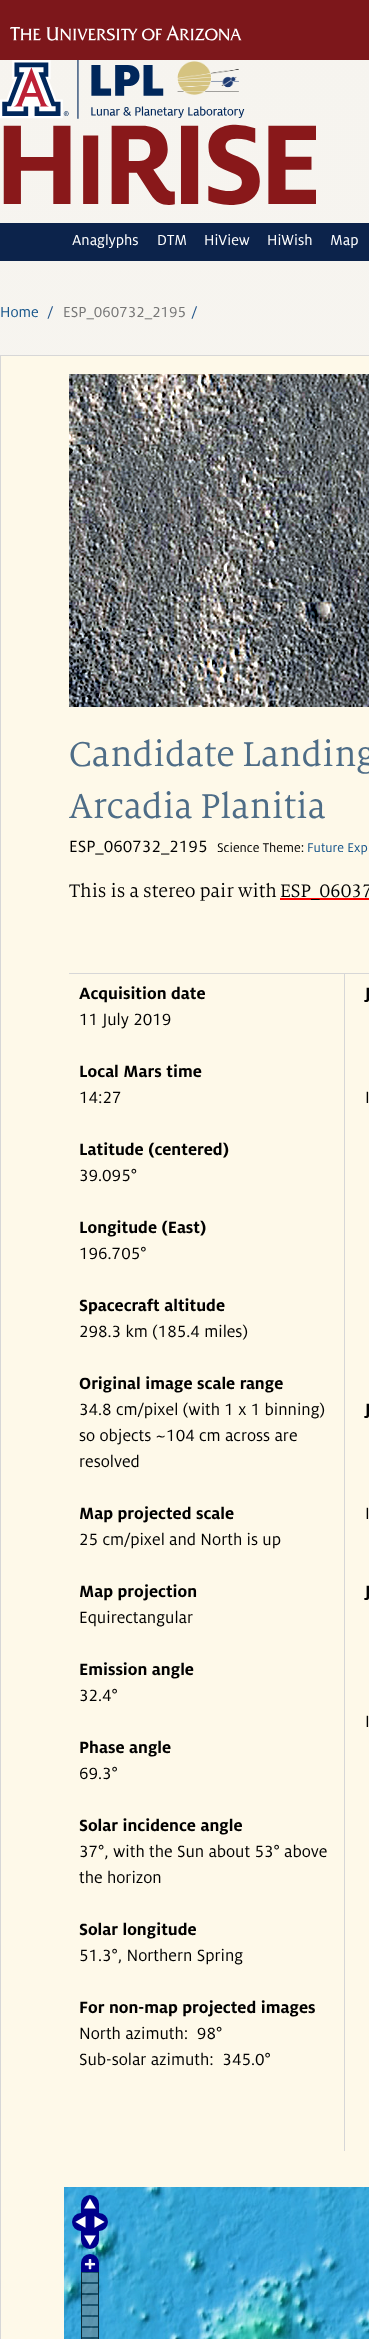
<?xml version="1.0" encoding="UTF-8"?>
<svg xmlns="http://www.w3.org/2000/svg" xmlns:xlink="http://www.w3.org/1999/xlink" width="369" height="2339">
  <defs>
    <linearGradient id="g1" gradientUnits="userSpaceOnUse" x1="0" y1="-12" x2="0" y2="2327"><stop offset="0" stop-color="#f6f4ef" /><stop offset="1" stop-color="#faf7f2" /></linearGradient>
    <clipPath id="clip1"><rect x="69" y="374" width="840" height="557" /></clipPath>
  </defs>
  <rect width="100%" height="100%" fill="#ffffff" />
  <rect y="60" width="369" height="295" fill="url(#g1)" />
  <rect width="369" height="60" fill="#7d171b" />
  <image x="10" y="25" width="232" height="16" xlink:href="image1.png" />
  <image x="0" y="60" width="316" height="145" xlink:href="image2.png" />
  <rect y="223" width="369" height="38" fill="#0c234b" />
  <rect x="0.5" y="355.5" width="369" height="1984" fill="#fef9e9" stroke="#d7d7d7" />
  <image x="69" y="374" width="300" height="333" xlink:href="image3.png" />
  <rect x="280" y="898" width="89" height="2" fill="#ff0000" />
  <rect x="69" y="973" width="300" height="1" fill="#d7d7d7" />
  <rect x="344" y="974" width="1" height="1177" fill="#d7d7d7" />
  <image x="64" y="2187" width="179" height="152" xlink:href="image4.png" />
  <image x="243" y="2187" width="126" height="152" xlink:href="image5.png" />
  <image x="81" y="2195" width="18" height="18" xlink:href="image6.png" />
  <image x="72" y="2213" width="18" height="18" xlink:href="image7.png" />
  <image x="90" y="2213" width="18" height="18" xlink:href="image8.png" />
  <image x="81" y="2231" width="18" height="18" xlink:href="image9.png" />
  <image x="81" y="2254" width="18" height="18" xlink:href="image10.png" />
  <image x="81" y="2272" width="18" height="67" xlink:href="image11.png" />
  <text x="72" y="245" style="font-family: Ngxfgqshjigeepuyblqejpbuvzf; font-size: 16px; fill: #ffffff">Anaglyphs</text>
  <text x="157" y="245" style="font-family: Ngxfgqshjigeepuyblqejpbuvzf; font-size: 16px; fill: #ffffff">DTM</text>
  <text x="204" y="245" style="font-family: Ngxfgqshjigeepuyblqejpbuvzf; font-size: 16px; fill: #ffffff">HiView</text>
  <text x="267" y="245" style="font-family: Ngxfgqshjigeepuyblqejpbuvzf; font-size: 16px; fill: #ffffff">HiWish</text>
  <text x="330" y="245" style="font-family: Ngxfgqshjigeepuyblqejpbuvzf; font-size: 16px; fill: #ffffff">Map</text>
  <text x="0" y="317" style="font-family: Ngxfgqshjigeepuyblqejpbuvzf; font-size: 16px; fill: #15548a">Home</text>
  <text x="47" y="317" style="font-family: Ngxfgqshjigeepuyblqejpbuvzf; font-size: 16px; fill: #1e5288">/</text>
  <text x="63" y="317" style="font-family: Ngxfgqshjigeepuyblqejpbuvzf; font-size: 16px; fill: #767676">ESP_060732_2195</text>
  <text x="191" y="317" style="font-family: Ngxfgqshjigeepuyblqejpbuvzf; font-size: 16px; fill: #1e5288">/</text>
  <text x="69" y="766" style="font-family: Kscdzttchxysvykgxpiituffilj; font-size: 38px; fill: #4e6d87">Candidate Landing</text>
  <text x="69" y="818" style="font-family: Kscdzttchxysvykgxpiituffilj; font-size: 38px; fill: #4e6d87">Arcadia Planitia</text>
  <text x="69" y="852" style="font-family: Ngxfgqshjigeepuyblqejpbuvzf; font-size: 18px; fill: #000000">ESP_060732_2195</text>
  <text x="217" y="852" style="font-family: Ngxfgqshjigeepuyblqejpbuvzf; font-size: 14px; fill: #000000">Science Theme:</text>
  <text x="307" y="852" style="font-family: Ngxfgqshjigeepuyblqejpbuvzf; font-size: 14px; fill: #15548a">Future Exp</text>
  <g clip-path="url(#clip1)">
    <text x="69" y="897" style="font-family: Kscdzttchxysvykgxpiituffilj; font-size: 20px; fill: #000000">This is a stereo pair with</text>
  </g>
  <text x="280" y="897" style="font-family: Kscdzttchxysvykgxpiituffilj; font-size: 20px; fill: #000000">ESP_06037</text>
  <text x="79" y="999" style="font-family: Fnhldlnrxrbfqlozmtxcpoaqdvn; font-size: 18px; font-weight: bold; fill: #000000">Acquisition date</text>
  <text x="79" y="1025" style="font-family: Ngxfgqshjigeepuyblqejpbuvzf; font-size: 18px; fill: #000000">11 July 2019</text>
  <text x="79" y="1077" style="font-family: Fnhldlnrxrbfqlozmtxcpoaqdvn; font-size: 18px; font-weight: bold; fill: #000000">Local Mars time</text>
  <text x="79" y="1103" style="font-family: Ngxfgqshjigeepuyblqejpbuvzf; font-size: 18px; fill: #000000">14:27</text>
  <text x="79" y="1155" style="font-family: Fnhldlnrxrbfqlozmtxcpoaqdvn; font-size: 18px; font-weight: bold; fill: #000000">Latitude (centered)</text>
  <text x="79" y="1181" style="font-family: Ngxfgqshjigeepuyblqejpbuvzf; font-size: 18px; fill: #000000">39.095°</text>
  <text x="79" y="1233" style="font-family: Fnhldlnrxrbfqlozmtxcpoaqdvn; font-size: 18px; font-weight: bold; fill: #000000">Longitude (East)</text>
  <text x="79" y="1259" style="font-family: Ngxfgqshjigeepuyblqejpbuvzf; font-size: 18px; fill: #000000">196.705°</text>
  <text x="79" y="1311" style="font-family: Fnhldlnrxrbfqlozmtxcpoaqdvn; font-size: 18px; font-weight: bold; fill: #000000">Spacecraft altitude</text>
  <text x="79" y="1337" style="font-family: Ngxfgqshjigeepuyblqejpbuvzf; font-size: 18px; fill: #000000">298.3 km (185.4 miles)</text>
  <text x="79" y="1389" style="font-family: Fnhldlnrxrbfqlozmtxcpoaqdvn; font-size: 18px; font-weight: bold; fill: #000000">Original image scale range</text>
  <text x="79" y="1415" style="font-family: Ngxfgqshjigeepuyblqejpbuvzf; font-size: 18px; fill: #000000">34.8 cm/pixel (with 1 x 1 binning)</text>
  <text x="79" y="1441" style="font-family: Ngxfgqshjigeepuyblqejpbuvzf; font-size: 18px; fill: #000000">so objects ~104 cm across are</text>
  <text x="79" y="1467" style="font-family: Ngxfgqshjigeepuyblqejpbuvzf; font-size: 18px; fill: #000000">resolved</text>
  <text x="79" y="1519" style="font-family: Fnhldlnrxrbfqlozmtxcpoaqdvn; font-size: 18px; font-weight: bold; fill: #000000">Map projected scale</text>
  <text x="79" y="1545" style="font-family: Ngxfgqshjigeepuyblqejpbuvzf; font-size: 18px; fill: #000000">25 cm/pixel and North is up</text>
  <text x="79" y="1597" style="font-family: Fnhldlnrxrbfqlozmtxcpoaqdvn; font-size: 18px; font-weight: bold; fill: #000000">Map projection</text>
  <text x="79" y="1623" style="font-family: Ngxfgqshjigeepuyblqejpbuvzf; font-size: 18px; fill: #000000">Equirectangular</text>
  <text x="79" y="1675" style="font-family: Fnhldlnrxrbfqlozmtxcpoaqdvn; font-size: 18px; font-weight: bold; fill: #000000">Emission angle</text>
  <text x="79" y="1701" style="font-family: Ngxfgqshjigeepuyblqejpbuvzf; font-size: 18px; fill: #000000">32.4°</text>
  <text x="79" y="1753" style="font-family: Fnhldlnrxrbfqlozmtxcpoaqdvn; font-size: 18px; font-weight: bold; fill: #000000">Phase angle</text>
  <text x="79" y="1779" style="font-family: Ngxfgqshjigeepuyblqejpbuvzf; font-size: 18px; fill: #000000">69.3°</text>
  <text x="79" y="1831" style="font-family: Fnhldlnrxrbfqlozmtxcpoaqdvn; font-size: 18px; font-weight: bold; fill: #000000">Solar incidence angle</text>
  <text x="79" y="1857" style="font-family: Ngxfgqshjigeepuyblqejpbuvzf; font-size: 18px; fill: #000000">37°, with the Sun about 53° above</text>
  <text x="79" y="1883" style="font-family: Ngxfgqshjigeepuyblqejpbuvzf; font-size: 18px; fill: #000000">the horizon</text>
  <text x="79" y="1935" style="font-family: Fnhldlnrxrbfqlozmtxcpoaqdvn; font-size: 18px; font-weight: bold; fill: #000000">Solar longitude</text>
  <text x="79" y="1961" style="font-family: Ngxfgqshjigeepuyblqejpbuvzf; font-size: 18px; fill: #000000">51.3°, Northern Spring</text>
  <text x="79" y="2013" style="font-family: Fnhldlnrxrbfqlozmtxcpoaqdvn; font-size: 18px; font-weight: bold; fill: #000000">For non-map projected images</text>
  <text x="79" y="2039" style="font-family: Ngxfgqshjigeepuyblqejpbuvzf; font-size: 18px; fill: #000000" xml:space="preserve">North azimuth:  98°</text>
  <text x="79" y="2065" style="font-family: Ngxfgqshjigeepuyblqejpbuvzf; font-size: 18px; fill: #000000" xml:space="preserve">Sub-solar azimuth:  345.0°</text>
  <text x="365" y="999" style="font-family: Fnhldlnrxrbfqlozmtxcpoaqdvn; font-size: 18px; font-weight: bold; fill: #000000">J</text>
  <text x="365" y="1103" style="font-family: Ngxfgqshjigeepuyblqejpbuvzf; font-size: 18px; fill: #000000">I</text>
  <text x="365" y="1415" style="font-family: Fnhldlnrxrbfqlozmtxcpoaqdvn; font-size: 18px; font-weight: bold; fill: #000000">J</text>
  <text x="365" y="1519" style="font-family: Ngxfgqshjigeepuyblqejpbuvzf; font-size: 18px; fill: #000000">I</text>
  <text x="365" y="1597" style="font-family: Fnhldlnrxrbfqlozmtxcpoaqdvn; font-size: 18px; font-weight: bold; fill: #000000">J</text>
  <text x="365" y="1727" style="font-family: Ngxfgqshjigeepuyblqejpbuvzf; font-size: 18px; fill: #000000">I</text>
</svg>
